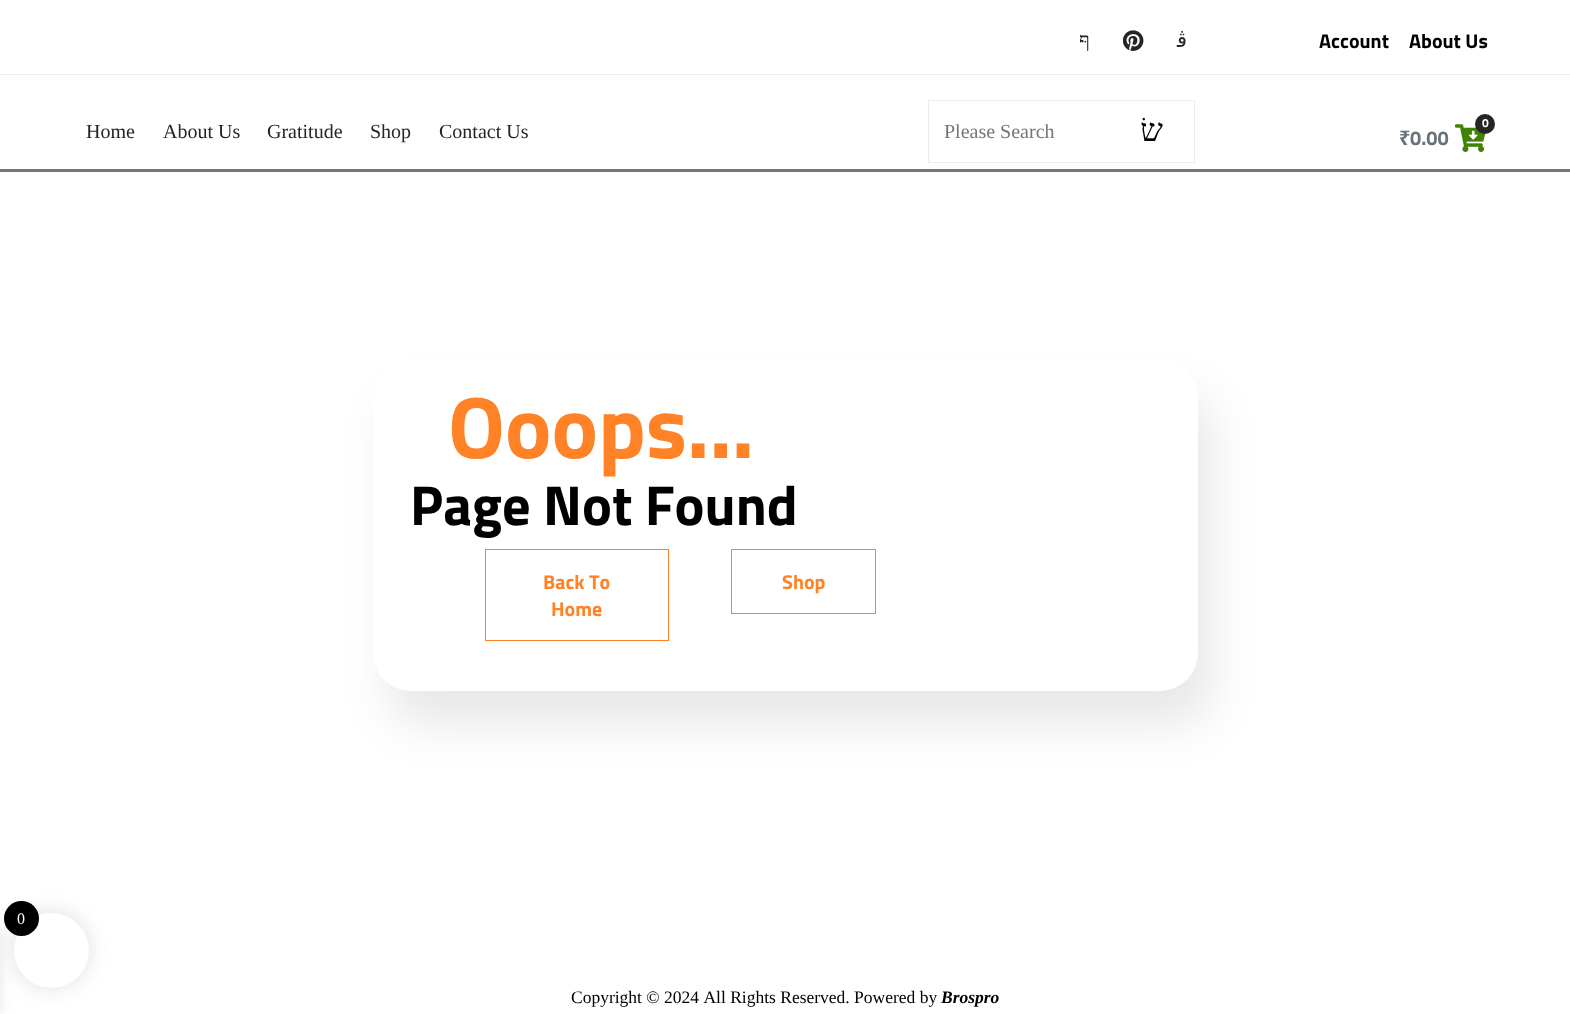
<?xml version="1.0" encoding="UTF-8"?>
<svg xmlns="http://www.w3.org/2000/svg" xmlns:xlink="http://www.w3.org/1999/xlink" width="1570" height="1014">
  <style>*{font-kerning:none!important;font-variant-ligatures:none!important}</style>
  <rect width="100%" height="100%" fill="#ffffff" />
  <rect y="169" width="1570" height="3" fill="#777777" />
  <rect y="74" width="1570" height="1" fill="#ededed" />
  <image x="1123" y="30" width="21" height="21" xlink:href="image1.png" />
  <rect x="928.5" y="100.5" width="266" height="62" fill="none" stroke="#ededed" />
  <image x="1455" y="124" width="31" height="28" xlink:href="image2.png" />
  <circle cx="1485" cy="124" r="10" fill="#252525" />
  <rect x="-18" y="929" width="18" height="85" fill="#000000" fill-opacity="0.1" filter="blur(6px)" />
  <rect x="11" y="910" width="80" height="80" rx="40" fill="#000000" fill-opacity="0.1" filter="blur(9.5px)" />
  <circle cx="51.5" cy="950.5" r="37.5" fill="#ffffff" />
  <circle cx="21.5" cy="918.5" r="17.5" fill="#000000" />
  <rect x="388" y="394" width="825" height="332" rx="38" fill="#000000" fill-opacity="0.09" filter="blur(23px)" />
  <rect x="373" y="359" width="825" height="332" rx="38" fill="#ffffff" />
  <rect x="485.5" y="549.5" width="183" height="91" fill="none" stroke="#ff8227" />
  <rect x="731.5" y="549.5" width="144" height="64" fill="none" stroke="#ff8227" />
  <text x="1090" y="47" style="font-family: Liberation Serif; font-size: 21px; direction: rtl; fill: #252525">ףּ</text>
  <text x="1187" y="47" style="font-family: DejaVu Sans; font-size: 21px; direction: rtl; fill: #252525">ﭬ</text>
  <text x="1319" y="48" style="font-family: Titillium Web; font-size: 20px; font-weight: bold; fill: #000000">Account</text>
  <text x="1409" y="48" style="font-family: Titillium Web; font-size: 20px; font-weight: bold; fill: #000000">About Us</text>
  <text x="86" y="138" style="font-family: Liberation Serif; font-size: 20px; fill: #252525">Home</text>
  <text x="163" y="138" style="font-family: Liberation Serif; font-size: 20px; fill: #252525">About Us</text>
  <text x="267" y="138" style="font-family: Liberation Serif; font-size: 20px; fill: #252525">Gratitude</text>
  <text x="370" y="138" style="font-family: Liberation Serif; font-size: 20px; fill: #252525">Shop</text>
  <text x="439" y="138" style="font-family: Liberation Serif; font-size: 20px; fill: #252525">Contact Us</text>
  <text x="944" y="138" style="font-family: Liberation Serif; font-size: 20px; fill: #757575">Please Search</text>
  <text x="1163" y="141" style="font-family: Liberation Serif; font-size: 32px; direction: rtl; fill: #000000">שׂ</text>
  <text x="1482" y="127" style="font-family: Titillium Web; font-size: 12px; font-weight: bold; fill: #ffffff">0</text>
  <text x="1399" y="145" style="font-family: Noto Sans; font-size: 20px; font-weight: bold; fill: #69727d">₹</text>
  <text x="1410" y="145" style="font-family: Titillium Web; font-size: 20px; font-weight: bold; fill: #69727d">0.00</text>
  <text x="17" y="924" style="font-family: Liberation Serif; font-size: 16px; fill: #ffffff">0</text>
  <text x="448" y="458" style="font-family: Titillium Web; font-size: 87.5px; font-weight: bold; fill: #ff8227">Ooops...</text>
  <text x="410" y="525" style="font-family: Titillium Web; font-size: 56.25px; font-weight: bold; fill: #000000">Page Not Found</text>
  <text x="543" y="589" style="font-family: Titillium Web; font-size: 20px; font-weight: bold; fill: #ff8227">Back To</text>
  <text x="551" y="616" style="font-family: Titillium Web; font-size: 20px; font-weight: bold; fill: #ff8227">Home</text>
  <text x="782" y="589" style="font-family: Titillium Web; font-size: 20px; font-weight: bold; fill: #ff8227">Shop</text>
  <text x="571" y="1003" style="font-family: Liberation Serif; font-size: 17.5px; fill: #000000">Copyright © 2024 All Rights Reserved. Powered by</text>
  <text x="941" y="1003" style="font-family: Liberation Serif; font-size: 17.5px; font-weight: bold; font-style: italic; fill: #000000">Brospro</text>
</svg>
